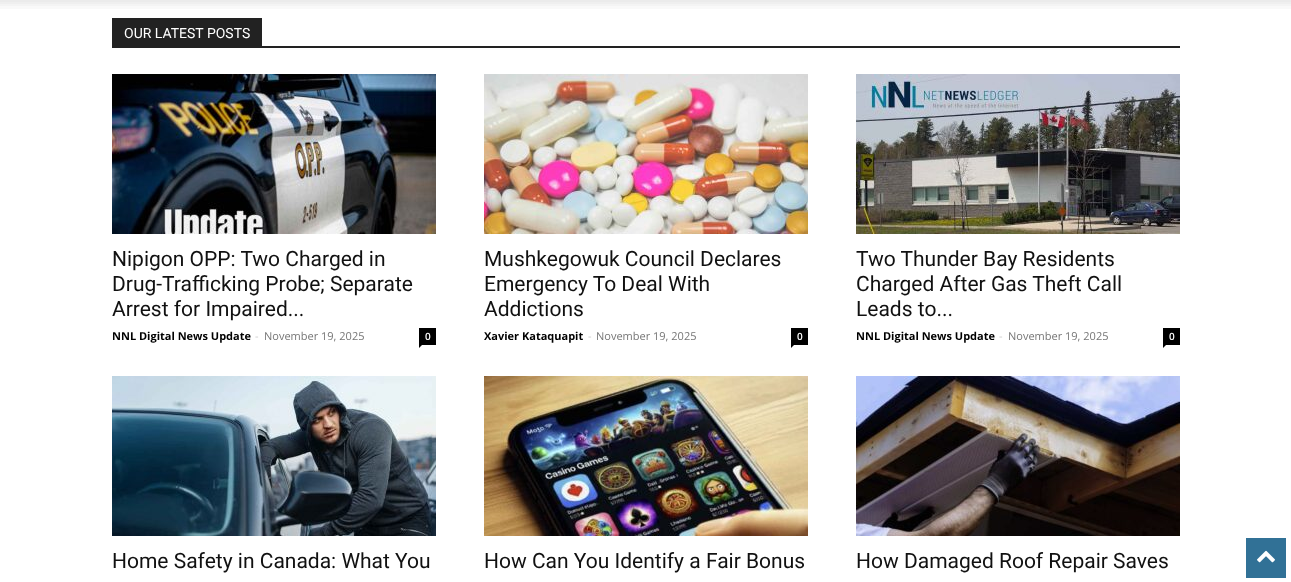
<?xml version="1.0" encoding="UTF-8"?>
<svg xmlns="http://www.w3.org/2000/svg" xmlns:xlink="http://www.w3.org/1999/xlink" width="1291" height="582">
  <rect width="100%" height="100%" fill="#ffffff" />
  <image x="0" y="0" width="1291" height="9" xlink:href="image1.png" />
  <rect x="112" y="46" width="1068" height="2" fill="#222222" />
  <rect x="112" y="18" width="150" height="28" fill="#222222" />
  <image x="112" y="74" width="324" height="160" xlink:href="image2.png" />
  <rect x="419" y="328" width="17" height="17" fill="#000000" />
  <path d="M 419 345 h 3 l -3 3 z" fill="#000000" />
  <image x="484" y="74" width="324" height="160" xlink:href="image3.png" />
  <rect x="791" y="328" width="17" height="17" fill="#000000" />
  <path d="M 791 345 h 3 l -3 3 z" fill="#000000" />
  <image x="856" y="74" width="324" height="160" xlink:href="image4.png" />
  <rect x="1163" y="328" width="17" height="17" fill="#000000" />
  <path d="M 1163 345 h 3 l -3 3 z" fill="#000000" />
  <image x="112" y="376" width="324" height="160" xlink:href="image5.png" />
  <image x="484" y="376" width="324" height="160" xlink:href="image6.png" />
  <image x="856" y="376" width="324" height="160" xlink:href="image7.png" />
  <rect x="1246" y="538" width="40" height="40" fill="#317196" />
  <image x="1257" y="550" width="18" height="13" xlink:href="image8.png" />
  <text x="124" y="38" style="font-family: Roboto; font-size: 14px; fill: #ffffff">OUR LATEST POSTS</text>
  <text x="112" y="266" style="font-family: Roboto; font-size: 21px; fill: #111111">Nipigon OPP: Two Charged in</text>
  <text x="112" y="291" style="font-family: Roboto; font-size: 21px; fill: #111111">Drug-Trafficking Probe; Separate</text>
  <text x="112" y="316" style="font-family: Roboto; font-size: 21px; fill: #111111">Arrest for Impaired...</text>
  <text x="112" y="340" style="font-family: Open Sans; font-size: 11px; font-weight: bold; fill: #000000">NNL Digital News Update</text>
  <text x="255" y="340" style="font-family: Open Sans; font-size: 11px; fill: #cccccc">-</text>
  <text x="264" y="340" style="font-family: Open Sans; font-size: 11px; fill: #767676">November 19, 2025</text>
  <text x="425" y="340" style="font-family: Open Sans; font-size: 10px; font-weight: 600; fill: #ffffff">0</text>
  <text x="484" y="266" style="font-family: Roboto; font-size: 21px; fill: #111111">Mushkegowuk Council Declares</text>
  <text x="484" y="291" style="font-family: Roboto; font-size: 21px; fill: #111111">Emergency To Deal With</text>
  <text x="484" y="316" style="font-family: Roboto; font-size: 21px; fill: #111111">Addictions</text>
  <text x="484" y="340" style="font-family: Open Sans; font-size: 11px; font-weight: bold; fill: #000000">Xavier Kataquapit</text>
  <text x="588" y="340" style="font-family: Open Sans; font-size: 11px; fill: #cccccc">-</text>
  <text x="596" y="340" style="font-family: Open Sans; font-size: 11px; fill: #767676">November 19, 2025</text>
  <text x="797" y="340" style="font-family: Open Sans; font-size: 10px; font-weight: 600; fill: #ffffff">0</text>
  <text x="856" y="266" style="font-family: Roboto; font-size: 21px; fill: #111111">Two Thunder Bay Residents</text>
  <text x="856" y="291" style="font-family: Roboto; font-size: 21px; fill: #111111">Charged After Gas Theft Call</text>
  <text x="856" y="316" style="font-family: Roboto; font-size: 21px; fill: #111111">Leads to...</text>
  <text x="856" y="340" style="font-family: Open Sans; font-size: 11px; font-weight: bold; fill: #000000">NNL Digital News Update</text>
  <text x="999" y="340" style="font-family: Open Sans; font-size: 11px; fill: #cccccc">-</text>
  <text x="1008" y="340" style="font-family: Open Sans; font-size: 11px; fill: #767676">November 19, 2025</text>
  <text x="1169" y="340" style="font-family: Open Sans; font-size: 10px; font-weight: 600; fill: #ffffff">0</text>
  <text x="112" y="568" style="font-family: Roboto; font-size: 21px; fill: #111111">Home Safety in Canada: What You</text>
  <text x="484" y="568" style="font-family: Roboto; font-size: 21px; fill: #111111">How Can You Identify a Fair Bonus</text>
  <text x="856" y="568" style="font-family: Roboto; font-size: 21px; fill: #111111">How Damaged Roof Repair Saves</text>
</svg>
